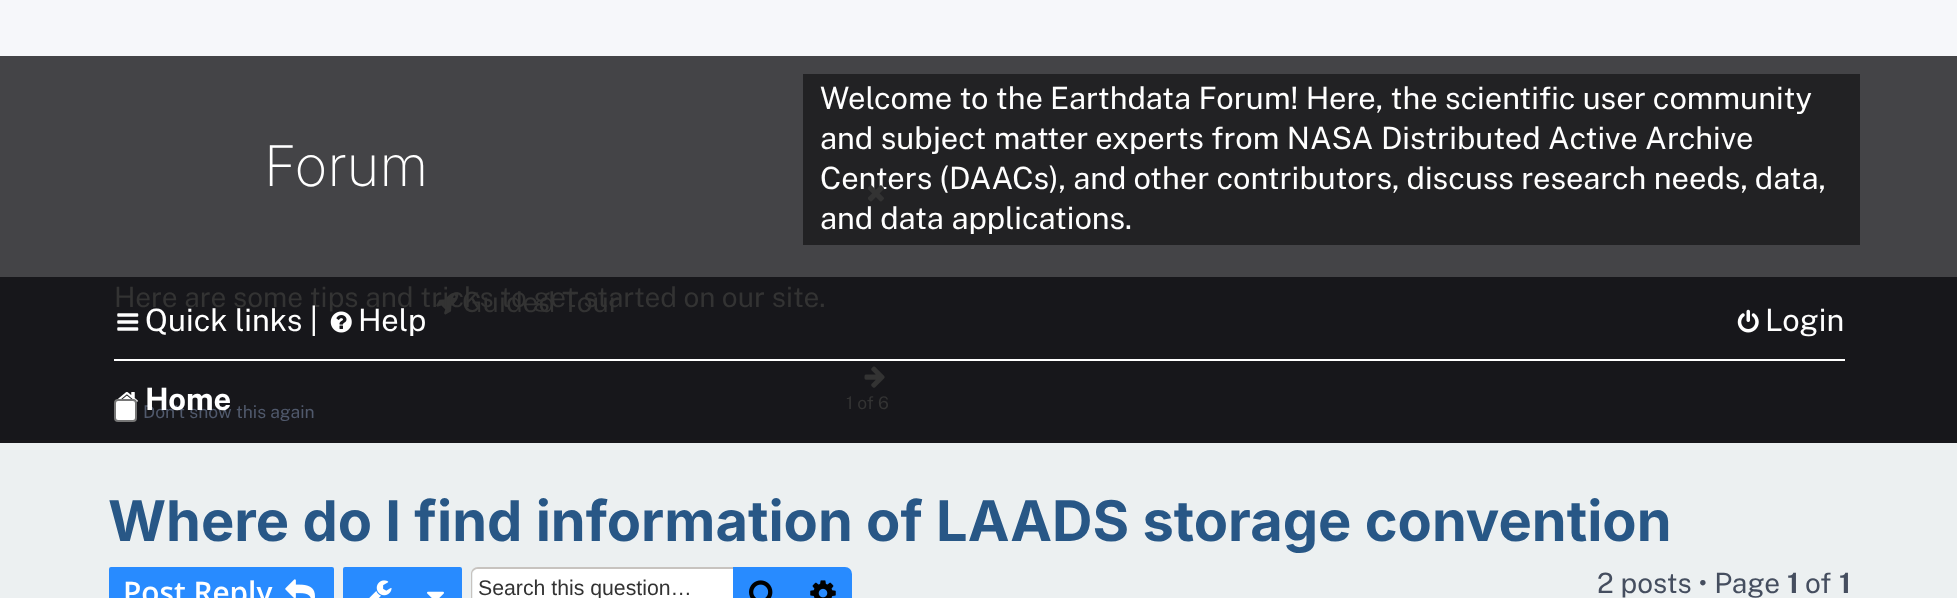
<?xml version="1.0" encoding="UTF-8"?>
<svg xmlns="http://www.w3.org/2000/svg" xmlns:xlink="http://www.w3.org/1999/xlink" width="1957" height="598">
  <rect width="100%" height="100%" fill="#f6f7fa" />
  <rect y="443" width="1957" height="155" fill="#ecf0f1" />
  <rect y="56" width="1957" height="221" fill="#444447" />
  <rect x="803" y="74" width="1057" height="171" fill="#222224" />
  <rect y="277" width="1957" height="166" fill="#17171b" />
  <image x="864" y="366" width="21" height="22" xlink:href="image2.png" />
  <image x="115" y="392" width="23" height="11" xlink:href="image7.png" />
  <rect x="115" y="400" width="21" height="21" rx="3" fill="#ffffff" stroke="#767676" stroke-width="2" />
  <image x="436" y="292" width="23" height="23" xlink:href="image3.png" />
  <image x="117" y="313" width="22" height="18" xlink:href="image4.png" />
  <image x="330" y="311" width="22" height="22" xlink:href="image5.png" />
  <image x="1737" y="309" width="22" height="24" xlink:href="image6.png" />
  <rect x="114" y="359" width="1731" height="2" fill="#ffffff" />
  <rect x="110" y="568" width="223" height="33" rx="1" fill="#288bff" stroke="#288bff" stroke-width="2" />
  <image x="285" y="579" width="30" height="19" xlink:href="image8.png" />
  <rect x="344" y="568" width="117" height="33" rx="1" fill="#288bff" stroke="#288bff" stroke-width="2" />
  <image x="369" y="580" width="23" height="18" xlink:href="image9.png" />
  <image x="427" y="591" width="17" height="7" xlink:href="image10.png" />
  <path d="M 478 569 h 255 v 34 h -255 c -3 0 -5 -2 -5 -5 v -24 c 0 -3 2 -5 5 -5 z" fill="#ffffff" />
  <path d="M 478 567 h 255 v 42 h -255 c -4 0 -7 -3 -7 -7 v -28 c 0 -4 3 -7 7 -7 z m 0 2 h 255 v 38 h -255 c -3 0 -6 -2 -6 -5 v -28 c 0 -3 3 -5 6 -5 z" fill="#c7c3bf" fill-rule="evenodd" />
  <rect x="733" y="567" width="60" height="31" fill="#288bff" />
  <image x="749" y="580" width="24" height="18" xlink:href="image11.png" />
  <path d="M 794 568 h 51 c 3.5 0 6 2.5 6 6 v 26 c 0 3.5 -2.5 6 -6 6 h -51 z" fill="#288bff" stroke="#288bff" stroke-width="2" />
  <image x="810" y="580" width="26" height="18" xlink:href="image12.png" />
  <text x="264" y="186" style="font-family: Inter; font-size: 56px; font-weight: 200; fill: #ffffff">Forum</text>
  <text x="820" y="109" style="font-family: Public Sans; font-size: 30.8px; fill: #ffffff">Welcome to the Earthdata Forum! Here, the scientific user community</text>
  <text x="820" y="149" style="font-family: Public Sans; font-size: 30.8px; fill: #ffffff">and subject matter experts from NASA Distributed Active Archive</text>
  <text x="820" y="189" style="font-family: Public Sans; font-size: 30.8px; fill: #ffffff">Centers (DAACs), and other contributors, discuss research needs, data,</text>
  <text x="820" y="229" style="font-family: Public Sans; font-size: 30.8px; fill: #ffffff">and data applications.</text>
  <image x="868" y="185" width="16" height="17" xlink:href="image1.png" />
  <text x="846" y="409" style="font-family: Public Sans; font-size: 17.5px; fill: #333333">1 of 6</text>
  <text x="143" y="418" style="font-family: Public Sans; font-size: 17.5px; fill: #50596c">Don't show this again</text>
  <text x="462" y="312" style="font-family: Public Sans; font-size: 28px; fill: #333333">Guided Tour</text>
  <text x="114" y="307" style="font-family: Public Sans; font-size: 28px; fill: #333333">Here are some tips and tricks to get started on our site.</text>
  <text x="145" y="331" style="font-family: Public Sans; font-size: 30.8px; fill: #ffffff">Quick links |</text>
  <text x="358" y="331" style="font-family: Public Sans; font-size: 30.8px; fill: #ffffff">Help</text>
  <text x="1765" y="331" style="font-family: Public Sans; font-size: 30.8px; fill: #ffffff">Login</text>
  <text x="145" y="410" style="font-family: Public Sans; font-size: 30.8px; font-weight: bold; fill: #ffffff">Home</text>
  <text x="108" y="541" style="font-family: Inter; font-size: 56px; font-weight: bold; fill: #285786">Where do I find information of LAADS storage convention</text>
  <text x="123" y="603" style="font-family: Open Sans; font-size: 29.75px; font-weight: 600; fill: #ffffff">Post Reply</text>
  <text x="478" y="595" style="font-family: Liberation Sans; font-size: 21.25px; fill: #333333">Search this question…</text>
  <text x="1597" y="593" style="font-family: Public Sans; font-size: 28px; fill: #454e5f">2 posts • Page</text>
  <text x="1787" y="593" style="font-family: Public Sans; font-size: 28px; font-weight: bold; fill: #454e5f">1</text>
  <text x="1805" y="593" style="font-family: Public Sans; font-size: 28px; fill: #454e5f">of</text>
  <text x="1839" y="593" style="font-family: Public Sans; font-size: 28px; font-weight: bold; fill: #454e5f">1</text>
</svg>
